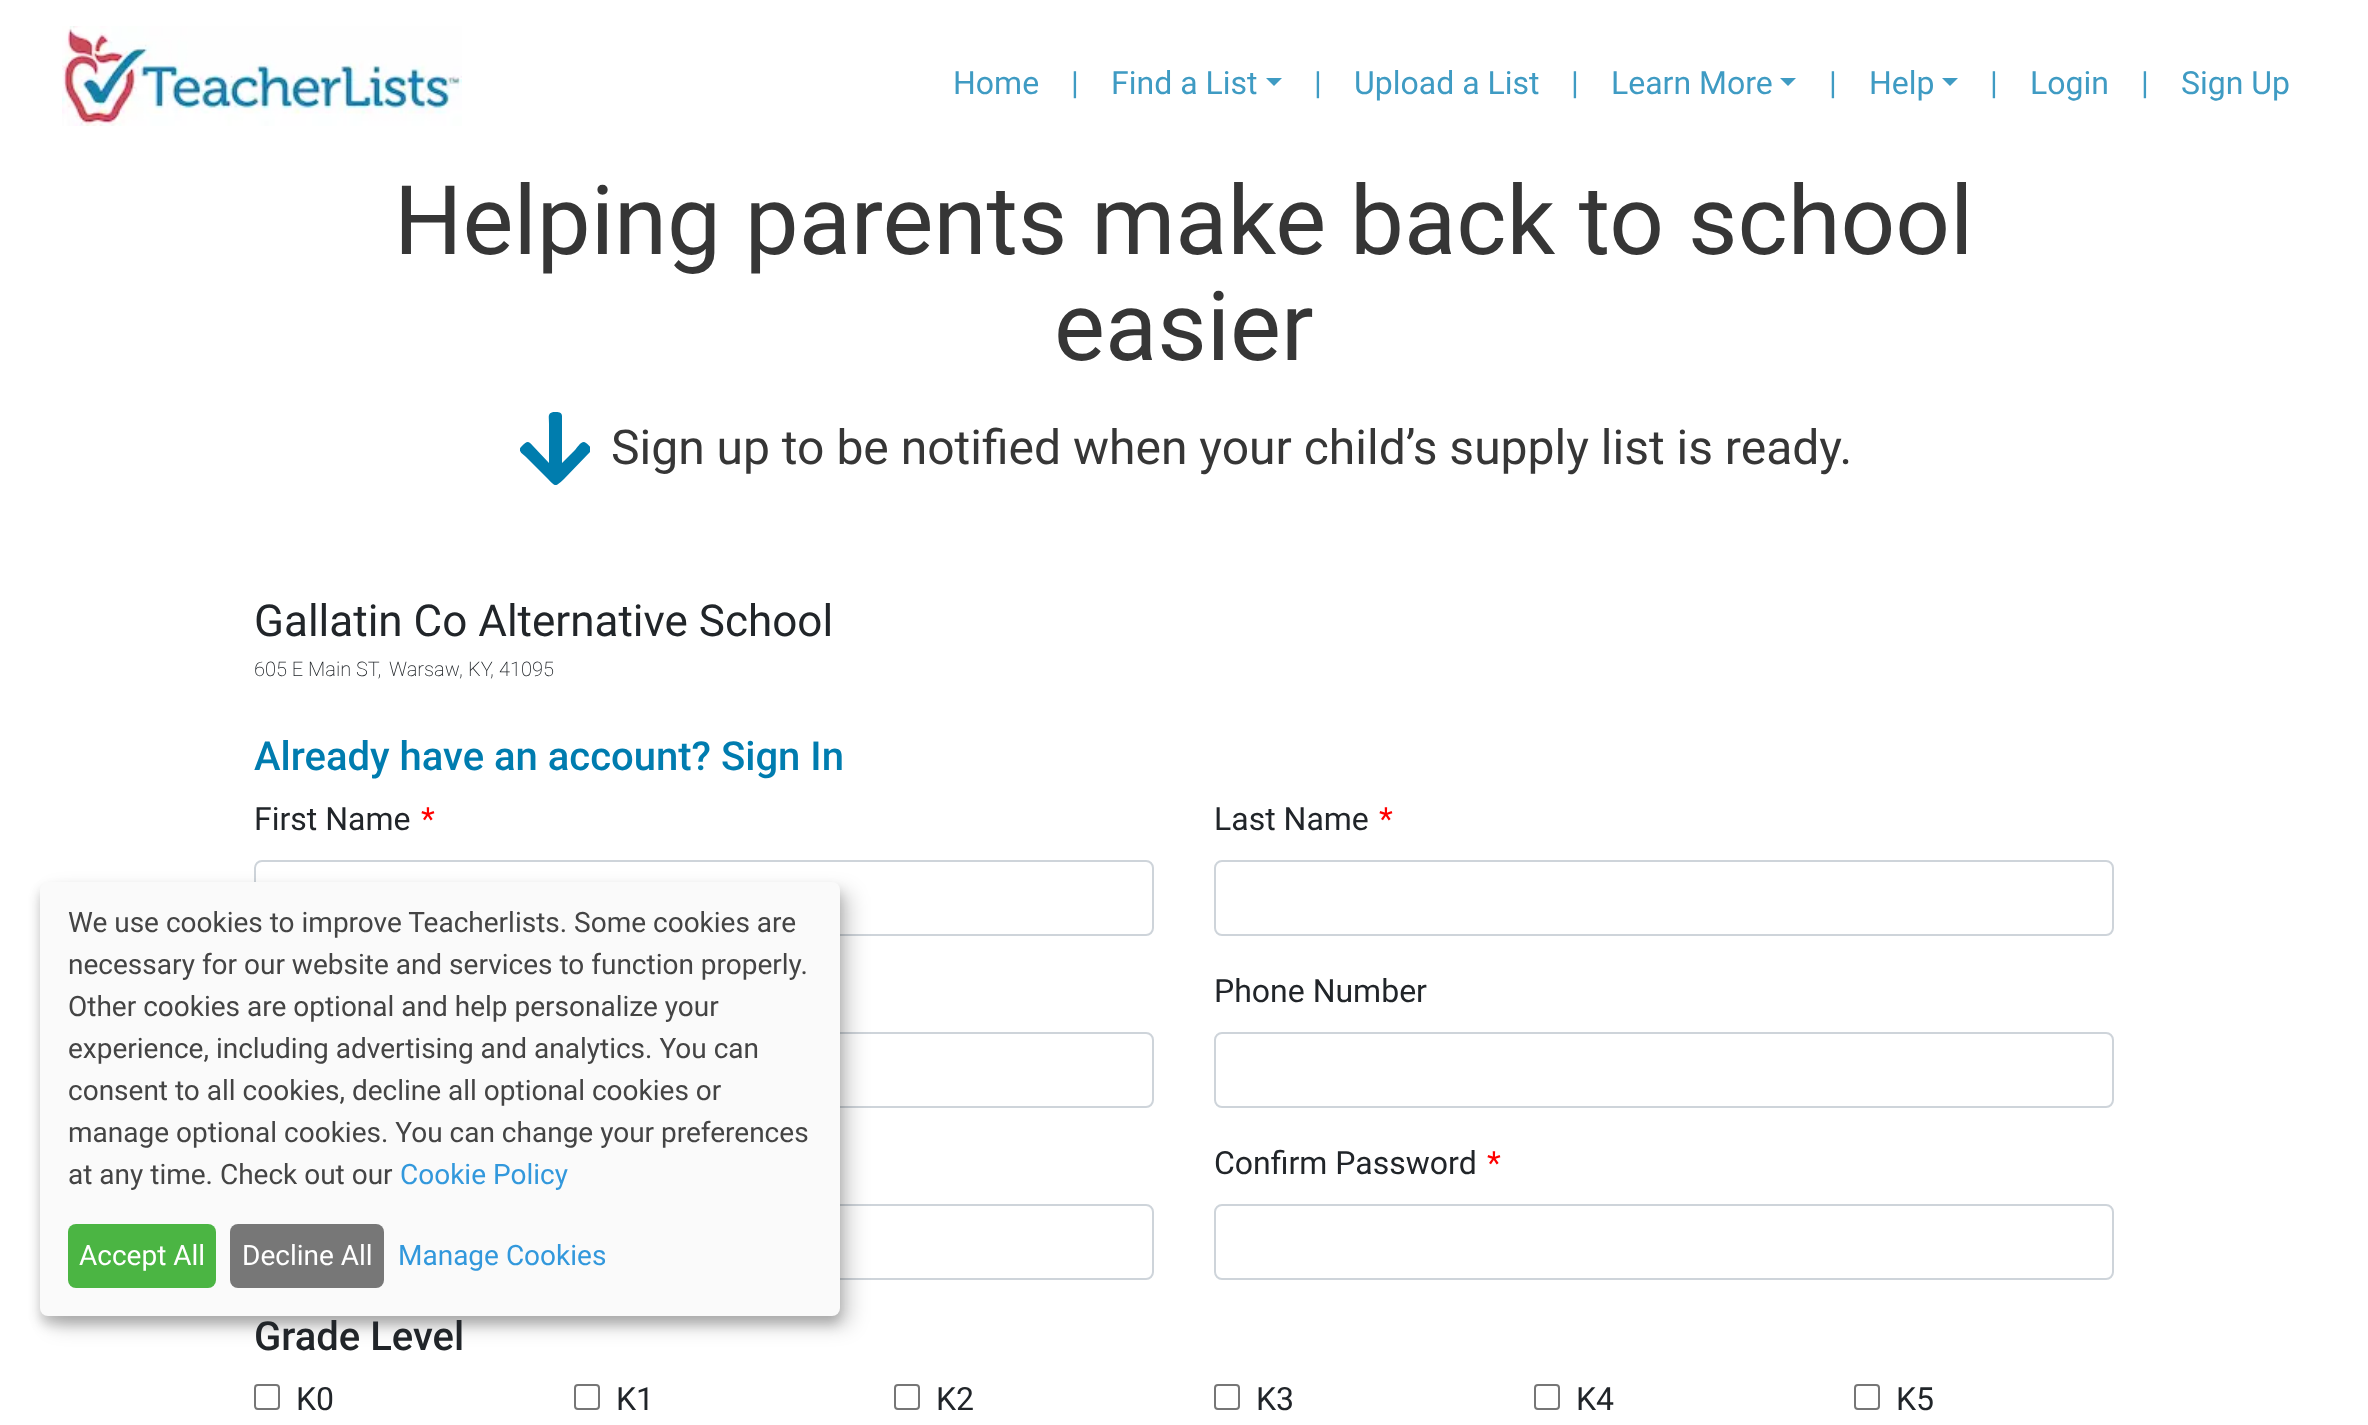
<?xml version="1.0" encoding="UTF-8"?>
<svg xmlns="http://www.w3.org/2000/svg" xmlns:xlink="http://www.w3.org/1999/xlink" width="2368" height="1425">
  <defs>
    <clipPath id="clip1"><rect x="520" y="412" width="70" height="74" /></clipPath>
  </defs>
  <rect width="100%" height="100%" fill="#ffffff" />
  <image x="62" y="26" width="400" height="100" xlink:href="image1.png" />
  <path d="M 1266 78 h 16 l -8 8 z" fill="#3f9bc3" />
  <path d="M 1780 78 h 16 l -8 8 z" fill="#3f9bc3" />
  <path d="M 1942 78 h 16 l -8 8 z" fill="#3f9bc3" />
  <g clip-path="url(#clip1)">
    <path d="M 586 443 c 3 2 7 6 4 9 l -26 27 c -9 8 -8 8 -16 0 l -22 -22 c -2 -2 -9 -6 -5 -10 c 6 -6 7 -7 12 -1 l 16 17 v -39 c 0 -7 -2 -12 6 -12 c 3 0 7 0 7 4 v 47 l 13 -13 c 2 -2 7 -11 11 -7 z" fill="#007dae" />
  </g>
  <rect x="255" y="861" width="898" height="74" rx="7" fill="none" stroke="#ced4da" stroke-width="2" />
  <rect x="1215" y="861" width="898" height="74" rx="7" fill="none" stroke="#ced4da" stroke-width="2" />
  <rect x="1215" y="1033" width="898" height="74" rx="7" fill="none" stroke="#ced4da" stroke-width="2" />
  <rect x="255" y="1033" width="898" height="74" rx="7" fill="none" stroke="#ced4da" stroke-width="2" />
  <rect x="1215" y="1205" width="898" height="74" rx="7" fill="none" stroke="#ced4da" stroke-width="2" />
  <rect x="255" y="1205" width="898" height="74" rx="7" fill="none" stroke="#ced4da" stroke-width="2" />
  <rect x="255" y="1385" width="24" height="24" rx="3" fill="none" stroke="#767676" stroke-width="2" />
  <rect x="575" y="1385" width="24" height="24" rx="3" fill="none" stroke="#767676" stroke-width="2" />
  <rect x="895" y="1385" width="24" height="24" rx="3" fill="none" stroke="#767676" stroke-width="2" />
  <rect x="1215" y="1385" width="24" height="24" rx="3" fill="none" stroke="#767676" stroke-width="2" />
  <rect x="1535" y="1385" width="24" height="24" rx="3" fill="none" stroke="#767676" stroke-width="2" />
  <rect x="1855" y="1385" width="24" height="24" rx="3" fill="none" stroke="#767676" stroke-width="2" />
  <rect x="50" y="892" width="800" height="434" rx="8" fill="#000000" fill-opacity="0.19" filter="blur(10px)" />
  <rect x="40" y="890" width="800" height="434" rx="8" fill="#000000" fill-opacity="0.2" filter="blur(6px)" />
  <rect x="40" y="882" width="800" height="434" rx="8" fill="#fafafa" />
  <rect x="68" y="1224" width="148" height="64" rx="8" fill="#4bb543" />
  <rect x="230" y="1224" width="154" height="64" rx="8" fill="#777777" />
  <text x="953" y="94" style="font-family: Roboto; font-size: 32px; fill: #3f9bc3">Home</text>
  <text x="1071" y="94" style="font-family: Roboto; font-size: 32px; fill: #3f9bc3">|</text>
  <text x="1111" y="94" style="font-family: Roboto; font-size: 32px; fill: #3f9bc3">Find a List</text>
  <text x="1314" y="94" style="font-family: Roboto; font-size: 32px; fill: #3f9bc3">|</text>
  <text x="1354" y="94" style="font-family: Roboto; font-size: 32px; fill: #3f9bc3">Upload a List</text>
  <text x="1571" y="94" style="font-family: Roboto; font-size: 32px; fill: #3f9bc3">|</text>
  <text x="1611" y="94" style="font-family: Roboto; font-size: 32px; fill: #3f9bc3">Learn More</text>
  <text x="1829" y="94" style="font-family: Roboto; font-size: 32px; fill: #3f9bc3">|</text>
  <text x="1869" y="94" style="font-family: Roboto; font-size: 32px; fill: #3f9bc3">Help</text>
  <text x="1990" y="94" style="font-family: Roboto; font-size: 32px; fill: #3f9bc3">|</text>
  <text x="2030" y="94" style="font-family: Roboto; font-size: 32px; fill: #3f9bc3">Login</text>
  <text x="2141" y="94" style="font-family: Roboto; font-size: 32px; fill: #3f9bc3">|</text>
  <text x="2181" y="94" style="font-family: Roboto; font-size: 32px; fill: #3f9bc3">Sign Up</text>
  <text x="394" y="254" style="font-family: Roboto; font-size: 96px; fill: #363636">Helping parents make back to school</text>
  <text x="1054" y="360" style="font-family: Roboto; font-size: 96px; fill: #363636">easier</text>
  <text x="611" y="464" style="font-family: Roboto; font-size: 48px; fill: #363636">Sign up to be notified when your child’s supply list is ready.</text>
  <text x="254" y="636" style="font-family: Roboto; font-size: 44px; fill: #212529">Gallatin Co Alternative School</text>
  <text x="254" y="676" style="font-family: Roboto; font-size: 20px; font-weight: 200; fill: #212529">605 E Main ST,</text>
  <text x="389" y="676" style="font-family: Roboto; font-size: 20px; font-weight: 200; fill: #212529">Warsaw</text>
  <text x="459" y="676" style="font-family: Roboto; font-size: 20px; font-weight: 200; fill: #212529">,</text>
  <text x="468" y="676" style="font-family: Roboto; font-size: 20px; font-weight: 200; fill: #212529">KY</text>
  <text x="499" y="676" style="font-family: Roboto; font-size: 20px; font-weight: 200; fill: #212529">41095</text>
  <text x="490" y="676" style="font-family: Roboto; font-size: 20px; font-weight: 200; fill: #212529">,</text>
  <text x="254" y="770" style="font-family: Roboto; font-size: 40px; font-weight: 500; fill: #007caf">Already have an account? Sign In</text>
  <text x="254" y="830" style="font-family: Roboto; font-size: 32px; fill: #212529">First Name</text>
  <text x="421" y="830" style="font-family: Roboto; font-size: 32px; fill: #ff0000">*</text>
  <text x="1214" y="830" style="font-family: Roboto; font-size: 32px; fill: #212529">Last Name</text>
  <text x="1379" y="830" style="font-family: Roboto; font-size: 32px; fill: #ff0000">*</text>
  <text x="1214" y="1002" style="font-family: Roboto; font-size: 32px; fill: #212529">Phone Number</text>
  <text x="1214" y="1174" style="font-family: Roboto; font-size: 32px; fill: #212529">Confirm Password</text>
  <text x="1487" y="1174" style="font-family: Roboto; font-size: 32px; fill: #ff0000">*</text>
  <text x="254" y="1350" style="font-family: Roboto; font-size: 40px; font-weight: 500; fill: #212529">Grade Level</text>
  <text x="296" y="1410" style="font-family: Roboto; font-size: 32px; fill: #212529">K0</text>
  <text x="616" y="1410" style="font-family: Roboto; font-size: 32px; fill: #212529">K1</text>
  <text x="936" y="1410" style="font-family: Roboto; font-size: 32px; fill: #212529">K2</text>
  <text x="1256" y="1410" style="font-family: Roboto; font-size: 32px; fill: #212529">K3</text>
  <text x="1576" y="1410" style="font-family: Roboto; font-size: 32px; fill: #212529">K4</text>
  <text x="1896" y="1410" style="font-family: Roboto; font-size: 32px; fill: #212529">K5</text>
  <text x="68" y="932" style="font-family: Roboto; font-size: 28px; fill: #444444">We use cookies to improve Teacherlists. Some cookies are</text>
  <text x="68" y="974" style="font-family: Roboto; font-size: 28px; fill: #444444">necessary for our website and services to function properly.</text>
  <text x="68" y="1016" style="font-family: Roboto; font-size: 28px; fill: #444444">Other cookies are optional and help personalize your</text>
  <text x="68" y="1058" style="font-family: Roboto; font-size: 28px; fill: #444444">experience, including advertising and analytics. You can</text>
  <text x="68" y="1100" style="font-family: Roboto; font-size: 28px; fill: #444444">consent to all cookies, decline all optional cookies or</text>
  <text x="68" y="1142" style="font-family: Roboto; font-size: 28px; fill: #444444">manage optional cookies. You can change your preferences</text>
  <text x="68" y="1184" style="font-family: Roboto; font-size: 28px; fill: #444444">at any time. Check out our</text>
  <text x="400" y="1184" style="font-family: Roboto; font-size: 28px; fill: #3298dc">Cookie Policy</text>
  <text x="79" y="1265" style="font-family: Roboto; font-size: 28px; fill: #ffffff">Accept All</text>
  <text x="242" y="1265" style="font-family: Roboto; font-size: 28px; fill: #ffffff">Decline All</text>
  <text x="398" y="1265" style="font-family: Roboto; font-size: 28px; fill: #3298dc">Manage Cookies</text>
</svg>
